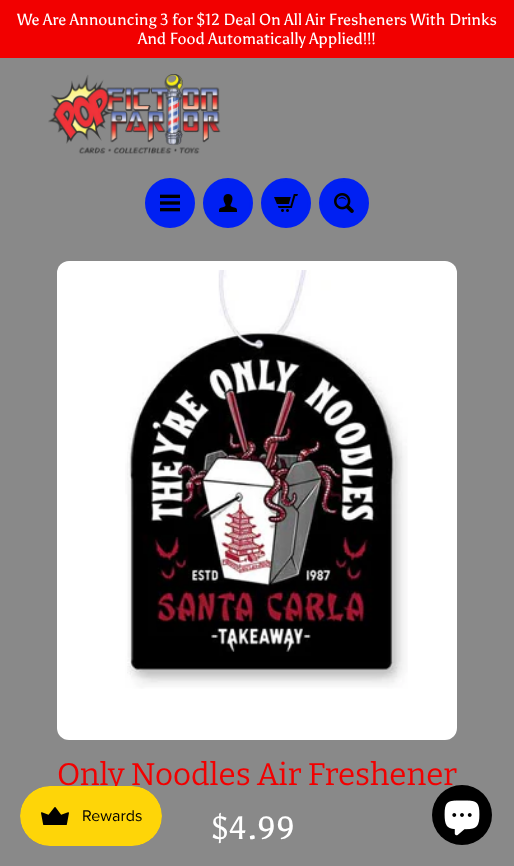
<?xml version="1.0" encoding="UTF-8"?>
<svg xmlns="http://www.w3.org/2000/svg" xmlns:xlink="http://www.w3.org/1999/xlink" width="514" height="866">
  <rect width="100%" height="100%" fill="#898989" />
  <rect width="514" height="58" fill="#f20000" />
  <image x="48" y="74" width="173" height="80" xlink:href="image1.png" />
  <circle cx="170" cy="203" r="23.5" fill="#0020f2" stroke="#0020f2" stroke-width="3" />
  <image x="160" y="194" width="20" height="18" xlink:href="image2.png" />
  <circle cx="228" cy="203" r="23.5" fill="#0020f2" stroke="#0020f2" stroke-width="3" />
  <image x="219" y="194" width="18" height="18" xlink:href="image3.png" />
  <circle cx="286" cy="203" r="23.5" fill="#0020f2" stroke="#0020f2" stroke-width="3" />
  <image x="274" y="194" width="24" height="18" xlink:href="image4.png" />
  <circle cx="344" cy="203" r="23.5" fill="#0020f2" stroke="#0020f2" stroke-width="3" />
  <image x="334" y="193" width="20" height="20" xlink:href="image5.png" />
  <rect x="57" y="261" width="400" height="479" rx="12" fill="#ffffff" />
  <image x="125" y="270" width="283" height="419" xlink:href="image6.png" />
  <text x="17" y="25" style="font-family: Asul; font-size: 16px; fill: #ffffff">We Are Announcing 3 for $12 Deal On All Air Fresheners With Drinks</text>
  <text x="138" y="44" style="font-family: Asul; font-size: 16px; fill: #ffffff">And Food Automatically Applied!!!</text>
  <text x="57" y="785" style="font-family: Bitter; font-size: 31.25px; fill: #f20000">Only Noodles Air Freshener</text>
  <text x="211" y="839" style="font-family: Asul; font-size: 32px; fill: #ffffff">$4.99</text>
  <image x="20" y="786" width="142" height="60" xlink:href="image7.png" />
  <circle cx="462" cy="815" r="30" fill="#000000" />
  <image x="444" y="800" width="36" height="36" xlink:href="image8.png" />
</svg>
